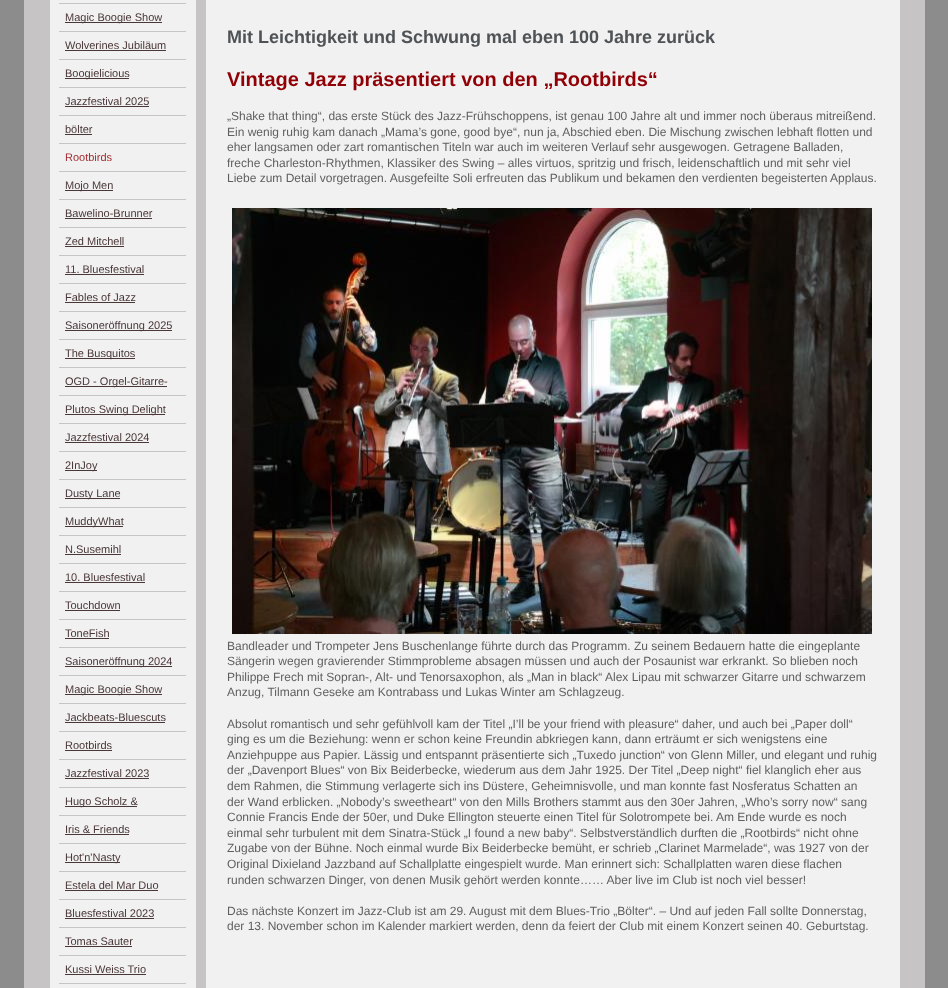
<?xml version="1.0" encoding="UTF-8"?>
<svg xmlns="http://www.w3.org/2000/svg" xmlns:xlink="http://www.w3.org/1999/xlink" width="948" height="988">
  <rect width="100%" height="100%" fill="#8c8c8c" />
  <image x="24" y="0" width="901" height="988" xlink:href="image1.png" />
  <rect x="59" y="3" width="127" height="1" fill="#c6c4c4" />
  <rect x="59" y="31" width="127" height="1" fill="#c6c4c4" />
  <rect x="65" y="22" width="97" height="1" fill="#4a3737" />
  <rect x="59" y="59" width="127" height="1" fill="#c6c4c4" />
  <rect x="65" y="50" width="101" height="1" fill="#4a3737" />
  <rect x="59" y="87" width="127" height="1" fill="#c6c4c4" />
  <rect x="65" y="78" width="64" height="1" fill="#4a3737" />
  <rect x="59" y="115" width="127" height="1" fill="#c6c4c4" />
  <rect x="65" y="106" width="84" height="1" fill="#4a3737" />
  <rect x="59" y="143" width="127" height="1" fill="#c6c4c4" />
  <rect x="65" y="134" width="27" height="1" fill="#4a3737" />
  <rect x="59" y="171" width="127" height="1" fill="#c6c4c4" />
  <rect x="59" y="199" width="127" height="1" fill="#c6c4c4" />
  <rect x="65" y="190" width="48" height="1" fill="#4a3737" />
  <rect x="59" y="227" width="127" height="1" fill="#c6c4c4" />
  <rect x="65" y="218" width="87" height="1" fill="#4a3737" />
  <rect x="59" y="255" width="127" height="1" fill="#c6c4c4" />
  <rect x="65" y="246" width="59" height="1" fill="#4a3737" />
  <rect x="59" y="283" width="127" height="1" fill="#c6c4c4" />
  <rect x="65" y="274" width="79" height="1" fill="#4a3737" />
  <rect x="59" y="311" width="127" height="1" fill="#c6c4c4" />
  <rect x="65" y="302" width="70" height="1" fill="#4a3737" />
  <rect x="59" y="339" width="127" height="1" fill="#c6c4c4" />
  <rect x="65" y="330" width="107" height="1" fill="#4a3737" />
  <rect x="59" y="367" width="127" height="1" fill="#c6c4c4" />
  <rect x="65" y="358" width="70" height="1" fill="#4a3737" />
  <rect x="59" y="395" width="127" height="1" fill="#c6c4c4" />
  <rect x="65" y="386" width="102" height="1" fill="#4a3737" />
  <rect x="59" y="423" width="127" height="1" fill="#c6c4c4" />
  <rect x="65" y="414" width="100" height="1" fill="#4a3737" />
  <rect x="59" y="451" width="127" height="1" fill="#c6c4c4" />
  <rect x="65" y="442" width="84" height="1" fill="#4a3737" />
  <rect x="59" y="479" width="127" height="1" fill="#c6c4c4" />
  <rect x="65" y="470" width="32" height="1" fill="#4a3737" />
  <rect x="59" y="507" width="127" height="1" fill="#c6c4c4" />
  <rect x="65" y="498" width="55" height="1" fill="#4a3737" />
  <rect x="59" y="535" width="127" height="1" fill="#c6c4c4" />
  <rect x="65" y="526" width="58" height="1" fill="#4a3737" />
  <rect x="59" y="563" width="127" height="1" fill="#c6c4c4" />
  <rect x="65" y="554" width="56" height="1" fill="#4a3737" />
  <rect x="59" y="591" width="127" height="1" fill="#c6c4c4" />
  <rect x="65" y="582" width="80" height="1" fill="#4a3737" />
  <rect x="59" y="619" width="127" height="1" fill="#c6c4c4" />
  <rect x="65" y="610" width="55" height="1" fill="#4a3737" />
  <rect x="59" y="647" width="127" height="1" fill="#c6c4c4" />
  <rect x="65" y="638" width="44" height="1" fill="#4a3737" />
  <rect x="59" y="675" width="127" height="1" fill="#c6c4c4" />
  <rect x="65" y="666" width="107" height="1" fill="#4a3737" />
  <rect x="59" y="703" width="127" height="1" fill="#c6c4c4" />
  <rect x="65" y="694" width="97" height="1" fill="#4a3737" />
  <rect x="59" y="731" width="127" height="1" fill="#c6c4c4" />
  <rect x="65" y="722" width="100" height="1" fill="#4a3737" />
  <rect x="59" y="759" width="127" height="1" fill="#c6c4c4" />
  <rect x="65" y="750" width="47" height="1" fill="#4a3737" />
  <rect x="59" y="787" width="127" height="1" fill="#c6c4c4" />
  <rect x="65" y="778" width="84" height="1" fill="#4a3737" />
  <rect x="59" y="815" width="127" height="1" fill="#c6c4c4" />
  <rect x="65" y="806" width="72" height="1" fill="#4a3737" />
  <rect x="59" y="843" width="127" height="1" fill="#c6c4c4" />
  <rect x="65" y="834" width="64" height="1" fill="#4a3737" />
  <rect x="59" y="871" width="127" height="1" fill="#c6c4c4" />
  <rect x="65" y="862" width="55" height="1" fill="#4a3737" />
  <rect x="59" y="899" width="127" height="1" fill="#c6c4c4" />
  <rect x="65" y="890" width="93" height="1" fill="#4a3737" />
  <rect x="59" y="927" width="127" height="1" fill="#c6c4c4" />
  <rect x="65" y="918" width="89" height="1" fill="#4a3737" />
  <rect x="59" y="955" width="127" height="1" fill="#c6c4c4" />
  <rect x="65" y="946" width="67" height="1" fill="#4a3737" />
  <rect x="59" y="983" width="127" height="1" fill="#c6c4c4" />
  <rect x="65" y="974" width="81" height="1" fill="#4a3737" />
  <image x="232" y="208" width="640" height="426" xlink:href="image2.png" />
  <text x="65" y="21" style="font-family: Liberation Sans; font-size: 11px; fill: #4a3737">Magic Boogie Show</text>
  <text x="65" y="49" style="font-family: Liberation Sans; font-size: 11px; fill: #4a3737">Wolverines Jubiläum</text>
  <text x="65" y="77" style="font-family: Liberation Sans; font-size: 11px; fill: #4a3737">Boogielicious</text>
  <text x="65" y="105" style="font-family: Liberation Sans; font-size: 11px; fill: #4a3737">Jazzfestival 2025</text>
  <text x="65" y="133" style="font-family: Liberation Sans; font-size: 11px; fill: #4a3737">bölter</text>
  <text x="65" y="161" style="font-family: Liberation Sans; font-size: 11px; fill: #a32d32">Rootbirds</text>
  <text x="65" y="189" style="font-family: Liberation Sans; font-size: 11px; fill: #4a3737">Mojo Men</text>
  <text x="65" y="217" style="font-family: Liberation Sans; font-size: 11px; fill: #4a3737">Bawelino-Brunner</text>
  <text x="65" y="245" style="font-family: Liberation Sans; font-size: 11px; fill: #4a3737">Zed Mitchell</text>
  <text x="65" y="273" style="font-family: Liberation Sans; font-size: 11px; fill: #4a3737">11. Bluesfestival</text>
  <text x="65" y="301" style="font-family: Liberation Sans; font-size: 11px; fill: #4a3737">Fables of Jazz</text>
  <text x="65" y="329" style="font-family: Liberation Sans; font-size: 11px; fill: #4a3737">Saisoneröffnung 2025</text>
  <text x="65" y="357" style="font-family: Liberation Sans; font-size: 11px; fill: #4a3737">The Busquitos</text>
  <text x="65" y="385" style="font-family: Liberation Sans; font-size: 11px; fill: #4a3737">OGD - Orgel-Gitarre-</text>
  <text x="65" y="413" style="font-family: Liberation Sans; font-size: 11px; fill: #4a3737">Plutos Swing Delight</text>
  <text x="65" y="441" style="font-family: Liberation Sans; font-size: 11px; fill: #4a3737">Jazzfestival 2024</text>
  <text x="65" y="469" style="font-family: Liberation Sans; font-size: 11px; fill: #4a3737">2InJoy</text>
  <text x="65" y="497" style="font-family: Liberation Sans; font-size: 11px; fill: #4a3737">Dusty Lane</text>
  <text x="65" y="525" style="font-family: Liberation Sans; font-size: 11px; fill: #4a3737">MuddyWhat</text>
  <text x="65" y="553" style="font-family: Liberation Sans; font-size: 11px; fill: #4a3737">N.Susemihl</text>
  <text x="65" y="581" style="font-family: Liberation Sans; font-size: 11px; fill: #4a3737">10. Bluesfestival</text>
  <text x="65" y="609" style="font-family: Liberation Sans; font-size: 11px; fill: #4a3737">Touchdown</text>
  <text x="65" y="637" style="font-family: Liberation Sans; font-size: 11px; fill: #4a3737">ToneFish</text>
  <text x="65" y="665" style="font-family: Liberation Sans; font-size: 11px; fill: #4a3737">Saisoneröffnung 2024</text>
  <text x="65" y="693" style="font-family: Liberation Sans; font-size: 11px; fill: #4a3737">Magic Boogie Show</text>
  <text x="65" y="721" style="font-family: Liberation Sans; font-size: 11px; fill: #4a3737">Jackbeats-Bluescuts</text>
  <text x="65" y="749" style="font-family: Liberation Sans; font-size: 11px; fill: #4a3737">Rootbirds</text>
  <text x="65" y="777" style="font-family: Liberation Sans; font-size: 11px; fill: #4a3737">Jazzfestival 2023</text>
  <text x="65" y="805" style="font-family: Liberation Sans; font-size: 11px; fill: #4a3737">Hugo Scholz &amp;</text>
  <text x="65" y="833" style="font-family: Liberation Sans; font-size: 11px; fill: #4a3737">Iris &amp; Friends</text>
  <text x="65" y="861" style="font-family: Liberation Sans; font-size: 11px; fill: #4a3737">Hot'n'Nasty</text>
  <text x="65" y="889" style="font-family: Liberation Sans; font-size: 11px; fill: #4a3737">Estela del Mar Duo</text>
  <text x="65" y="917" style="font-family: Liberation Sans; font-size: 11px; fill: #4a3737">Bluesfestival 2023</text>
  <text x="65" y="945" style="font-family: Liberation Sans; font-size: 11px; fill: #4a3737">Tomas Sauter</text>
  <text x="65" y="973" style="font-family: Liberation Sans; font-size: 11px; fill: #4a3737">Kussi Weiss Trio</text>
  <text x="227" y="43" style="font-family: Liberation Sans; font-size: 18px; font-weight: bold; fill: #4f5356">Mit Leichtigkeit und Schwung mal eben 100 Jahre zurück</text>
  <text x="227" y="86" style="font-family: Liberation Sans; font-size: 20px; font-weight: bold; fill: #900006">Vintage Jazz präsentiert von den „Rootbirds“</text>
  <text x="227" y="120" style="font-family: Liberation Sans; font-size: 12px; fill: #5f5f5f">„Shake that thing“, das erste Stück des Jazz-Frühschoppens, ist genau 100 Jahre alt und immer noch überaus mitreißend.</text>
  <text x="227" y="136" style="font-family: Liberation Sans; font-size: 12px; fill: #5f5f5f">Ein wenig ruhig kam danach „Mama’s gone, good bye“, nun ja, Abschied eben. Die Mischung zwischen lebhaft flotten und</text>
  <text x="227" y="151" style="font-family: Liberation Sans; font-size: 12px; fill: #5f5f5f">eher langsamen oder zart romantischen Titeln war auch im weiteren Verlauf sehr ausgewogen. Getragene Balladen,</text>
  <text x="227" y="167" style="font-family: Liberation Sans; font-size: 12px; fill: #5f5f5f">freche Charleston-Rhythmen, Klassiker des Swing – alles virtuos, spritzig und frisch, leidenschaftlich und mit sehr viel</text>
  <text x="227" y="182" style="font-family: Liberation Sans; font-size: 12px; fill: #5f5f5f">Liebe zum Detail vorgetragen. Ausgefeilte Soli erfreuten das Publikum und bekamen den verdienten begeisterten Applaus.</text>
  <text x="227" y="650" style="font-family: Liberation Sans; font-size: 12px; fill: #5f5f5f">Bandleader und Trompeter Jens Buschenlange führte durch das Programm. Zu seinem Bedauern hatte die eingeplante</text>
  <text x="227" y="665" style="font-family: Liberation Sans; font-size: 12px; fill: #5f5f5f">Sängerin wegen gravierender Stimmprobleme absagen müssen und auch der Posaunist war erkrankt. So blieben noch</text>
  <text x="227" y="681" style="font-family: Liberation Sans; font-size: 12px; fill: #5f5f5f">Philippe Frech mit Sopran-, Alt- und Tenorsaxophon, als „Man in black“ Alex Lipau mit schwarzer Gitarre und schwarzem</text>
  <text x="227" y="696" style="font-family: Liberation Sans; font-size: 12px; fill: #5f5f5f">Anzug, Tilmann Geseke am Kontrabass und Lukas Winter am Schlagzeug.</text>
  <text x="227" y="728" style="font-family: Liberation Sans; font-size: 12px; fill: #5f5f5f">Absolut romantisch und sehr gefühlvoll kam der Titel „I’ll be your friend with pleasure“ daher, und auch bei „Paper doll“</text>
  <text x="227" y="743" style="font-family: Liberation Sans; font-size: 12px; fill: #5f5f5f">ging es um die Beziehung: wenn er schon keine Freundin abkriegen kann, dann erträumt er sich wenigstens eine</text>
  <text x="227" y="759" style="font-family: Liberation Sans; font-size: 12px; fill: #5f5f5f">Anziehpuppe aus Papier. Lässig und entspannt präsentierte sich „Tuxedo junction“ von Glenn Miller, und elegant und ruhig</text>
  <text x="227" y="774" style="font-family: Liberation Sans; font-size: 12px; fill: #5f5f5f">der „Davenport Blues“ von Bix Beiderbecke, wiederum aus dem Jahr 1925. Der Titel „Deep night“ fiel klanglich eher aus</text>
  <text x="227" y="790" style="font-family: Liberation Sans; font-size: 12px; fill: #5f5f5f">dem Rahmen, die Stimmung verlagerte sich ins Düstere, Geheimnisvolle, und man konnte fast Nosferatus Schatten an</text>
  <text x="227" y="806" style="font-family: Liberation Sans; font-size: 12px; fill: #5f5f5f">der Wand erblicken. „Nobody’s sweetheart“ von den Mills Brothers stammt aus den 30er Jahren, „Who’s sorry now“ sang</text>
  <text x="227" y="821" style="font-family: Liberation Sans; font-size: 12px; fill: #5f5f5f">Connie Francis Ende der 50er, und Duke Ellington steuerte einen Titel für Solotrompete bei. Am Ende wurde es noch</text>
  <text x="227" y="837" style="font-family: Liberation Sans; font-size: 12px; fill: #5f5f5f">einmal sehr turbulent mit dem Sinatra-Stück „I found a new baby“. Selbstverständlich durften die „Rootbirds“ nicht ohne</text>
  <text x="227" y="852" style="font-family: Liberation Sans; font-size: 12px; fill: #5f5f5f">Zugabe von der Bühne. Noch einmal wurde Bix Beiderbecke bemüht, er schrieb „Clarinet Marmelade“, was 1927 von der</text>
  <text x="227" y="868" style="font-family: Liberation Sans; font-size: 12px; fill: #5f5f5f">Original Dixieland Jazzband auf Schallplatte eingespielt wurde. Man erinnert sich: Schallplatten waren diese flachen</text>
  <text x="227" y="884" style="font-family: Liberation Sans; font-size: 12px; fill: #5f5f5f">runden schwarzen Dinger, von denen Musik gehört werden konnte…… Aber live im Club ist noch viel besser!</text>
  <text x="227" y="915" style="font-family: Liberation Sans; font-size: 12px; fill: #5f5f5f">Das nächste Konzert im Jazz-Club ist am 29. August mit dem Blues-Trio „Bölter“. – Und auf jeden Fall sollte Donnerstag,</text>
  <text x="227" y="930" style="font-family: Liberation Sans; font-size: 12px; fill: #5f5f5f">der 13. November schon im Kalender markiert werden, denn da feiert der Club mit einem Konzert seinen 40. Geburtstag.</text>
</svg>
